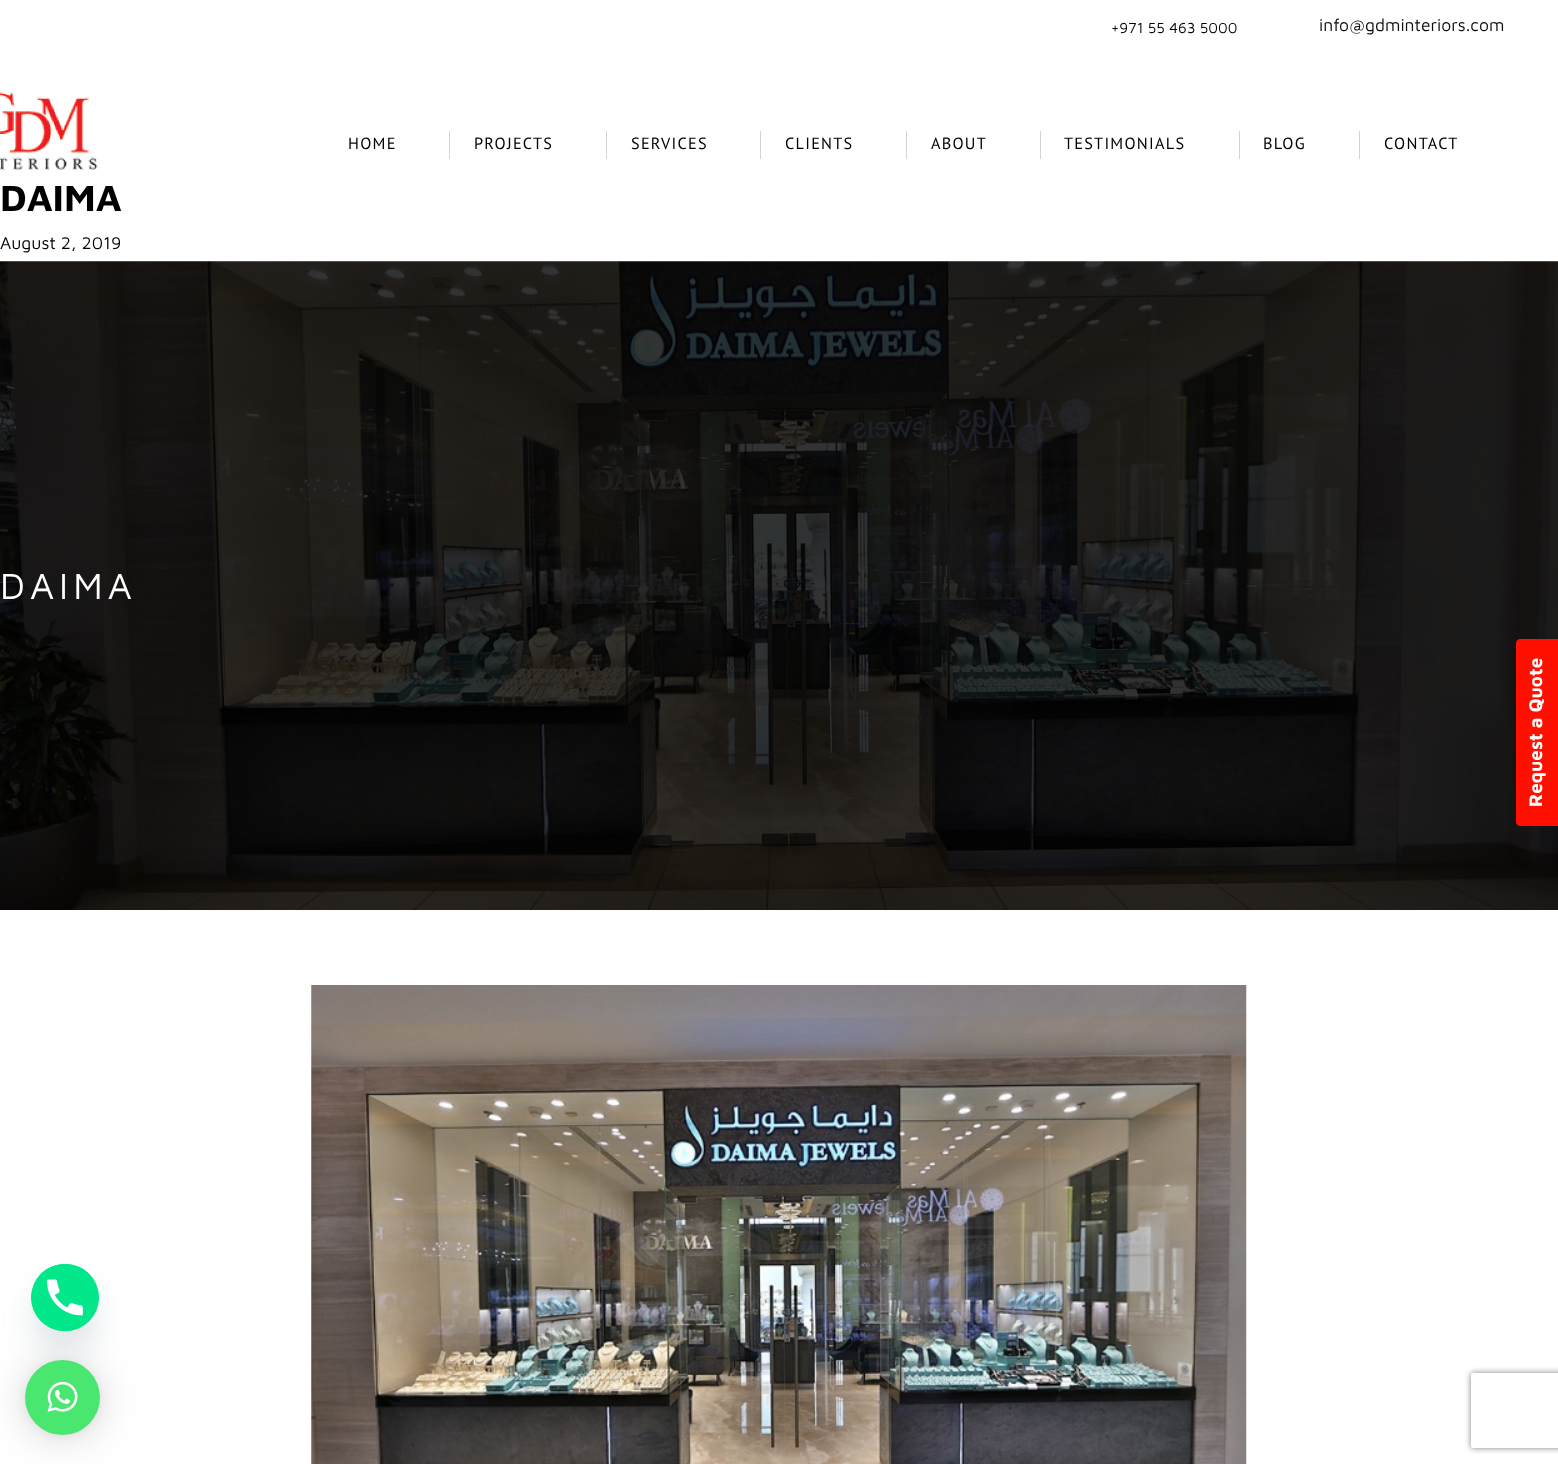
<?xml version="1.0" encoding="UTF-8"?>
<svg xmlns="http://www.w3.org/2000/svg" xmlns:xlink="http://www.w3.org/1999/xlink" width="1558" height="1464">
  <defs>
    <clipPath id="clip1"><path d="M 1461 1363 h 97 v 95 h -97 z m 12.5 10 h 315 c 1.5 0 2.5 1 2.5 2.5 v 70 c 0 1.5 -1 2.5 -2.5 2.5 h -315 c -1.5 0 -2.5 -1 -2.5 -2.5 v -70 c 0 -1.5 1 -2.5 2.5 -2.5 z" clip-rule="evenodd" /></clipPath>
  </defs>
  <rect width="100%" height="100%" fill="#ffffff" />
  <image x="0" y="92" width="98" height="78" xlink:href="image1.png" />
  <rect x="449" y="131" width="1" height="28" fill="#d3d3d3" />
  <rect x="606" y="131" width="1" height="28" fill="#d3d3d3" />
  <rect x="760" y="131" width="1" height="28" fill="#d3d3d3" />
  <rect x="906" y="131" width="1" height="28" fill="#d3d3d3" />
  <rect x="1040" y="131" width="1" height="28" fill="#d3d3d3" />
  <rect x="1239" y="131" width="1" height="28" fill="#d3d3d3" />
  <rect x="1359" y="131" width="1" height="28" fill="#d3d3d3" />
  <image x="0" y="261" width="1558" height="649" xlink:href="image2.png" />
  <image x="311" y="985" width="936" height="479" xlink:href="image3.png" />
  <path d="M 1516 822 v -179 c 0 -2 2 -4 4 -4 h 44 v 187 h -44 c -2 0 -4 -2 -4 -4 z" fill="#ff1000" />
  <rect x="31" y="1284" width="68" height="67" rx="33.5" fill="#49687e" fill-opacity="0.16" filter="blur(15px)" />
  <rect x="31" y="1264" width="68" height="67" rx="33.5" fill="#03e78b" />
  <image x="31" y="1264" width="68" height="67" xlink:href="image4.png" />
  <rect x="25" y="1363" width="75" height="75" rx="37.5" fill="#000000" fill-opacity="0.16" filter="blur(20px)" />
  <rect x="25" y="1361" width="75" height="75" rx="37.5" fill="#000000" fill-opacity="0.06" filter="blur(4px)" />
  <circle cx="62.5" cy="1397.5" r="37.5" fill="#49e670" />
  <image x="47" y="1381" width="31" height="31" xlink:href="image5.png" />
  <g clip-path="url(#clip1)">
    <rect x="1471" y="1373" width="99" height="75" rx="2.5" fill="#808080" filter="blur(3px)" />
  </g>
  <text x="1111" y="33" style="font-family: Maven Pro; font-size: 15px; fill: #000000">+971 55 463 5000</text>
  <text x="1319" y="31" style="font-family: Maven Pro; font-size: 17.5px; fill: #0a0a0a">info@gdminteriors.com</text>
  <text x="348" y="149" style="font-family: PT Sans; font-size: 16.25px; letter-spacing: 1.25px; fill: #000000">HOME</text>
  <text x="474" y="149" style="font-family: PT Sans; font-size: 16.25px; letter-spacing: 1.25px; fill: #000000">PROJECTS</text>
  <text x="631" y="149" style="font-family: PT Sans; font-size: 16.25px; letter-spacing: 1.25px; fill: #000000">SERVICES</text>
  <text x="785" y="149" style="font-family: PT Sans; font-size: 16.25px; letter-spacing: 1.25px; fill: #000000">CLIENTS</text>
  <text x="931" y="149" style="font-family: PT Sans; font-size: 16.25px; letter-spacing: 1.25px; fill: #000000">ABOUT</text>
  <text x="1064" y="149" style="font-family: PT Sans; font-size: 16.25px; letter-spacing: 1.25px; fill: #000000">TESTIMONIALS</text>
  <text x="1263" y="149" style="font-family: PT Sans; font-size: 16.25px; letter-spacing: 1.25px; fill: #000000">BLOG</text>
  <text x="1384" y="149" style="font-family: PT Sans; font-size: 16.25px; letter-spacing: 1.25px; fill: #000000">CONTACT</text>
  <text x="0" y="211" style="font-family: Maven Pro; font-size: 37.5px; font-weight: bold; fill: #000000">DAIMA</text>
  <text x="0" y="249" style="font-family: Maven Pro; font-size: 17.5px; fill: #000000">August 2, 2019</text>
  <text x="0" y="599" style="font-family: Maven Pro; font-size: 37.5px; letter-spacing: 5px; fill: #ffffff">DAIMA</text>
  <text x="1542" y="807" transform="rotate(-90 1542 807)" style="font-family: Maven Pro; font-size: 18.75px; font-weight: bold; fill: #ffffff">Request a Quote</text>
</svg>
